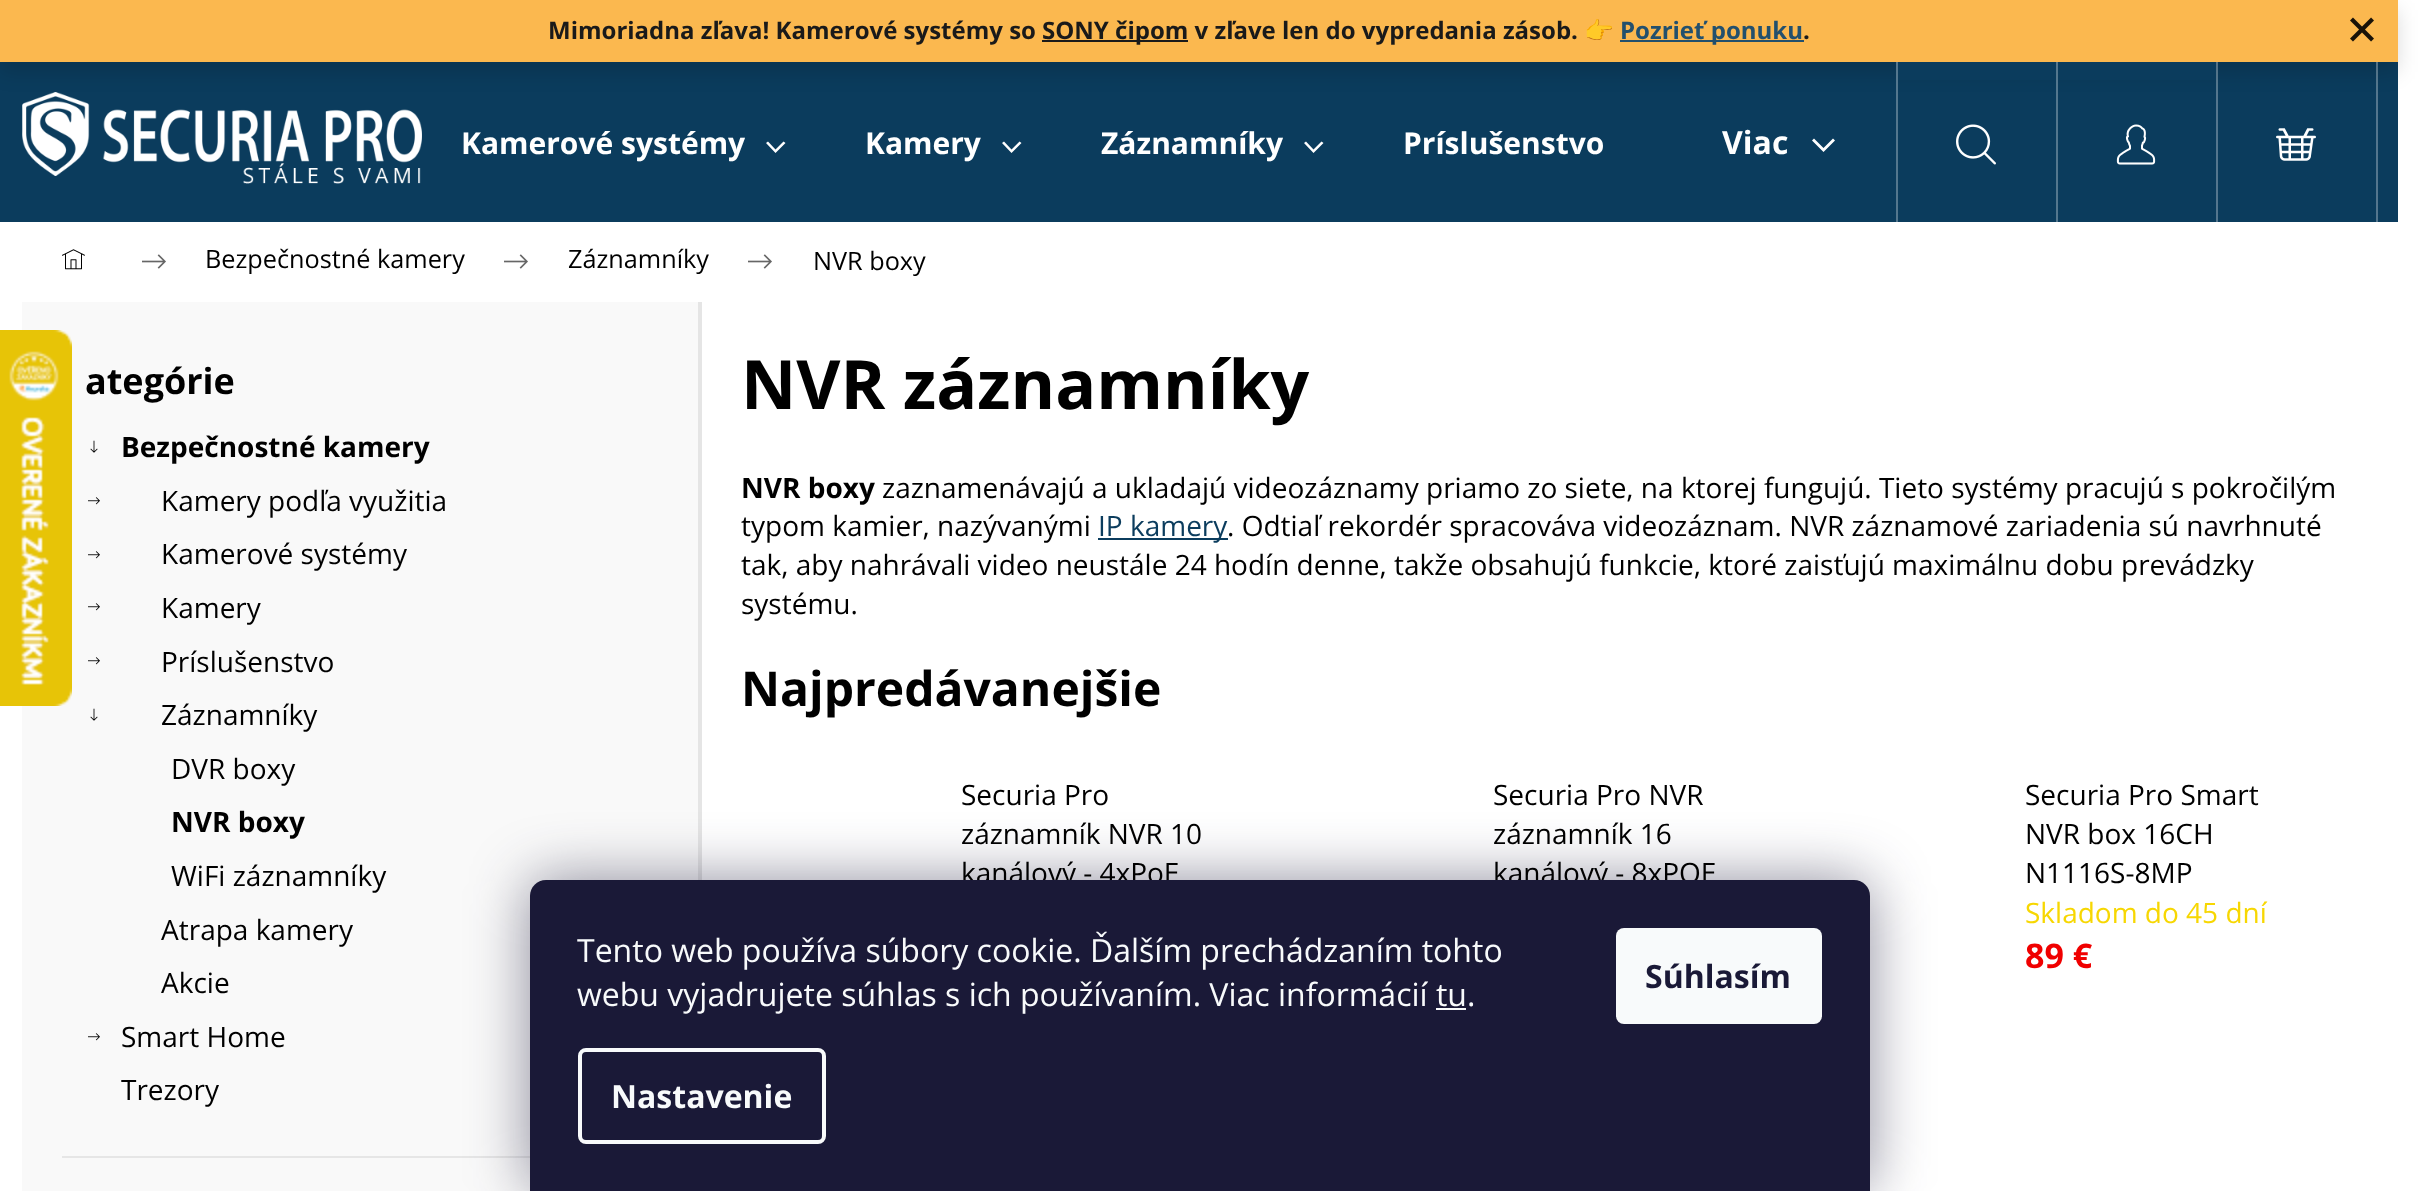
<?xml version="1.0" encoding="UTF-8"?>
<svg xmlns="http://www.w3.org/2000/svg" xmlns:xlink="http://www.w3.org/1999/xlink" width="2427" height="1191">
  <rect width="100%" height="100%" fill="#ffffff" />
  <rect x="22" y="302" width="676" height="889" fill="#f9f9f9" />
  <image x="0" y="330" width="72" height="376" xlink:href="image1.png" />
  <rect y="62" width="2398" height="160" fill="#0b3c5d" />
  <image x="22" y="92" width="400" height="92" xlink:href="image3.png" />
  <rect y="10" width="2398" height="62" fill="#000000" fill-opacity="0.14" filter="blur(10px)" />
  <rect width="2398" height="62" fill="#fbb84f" />
  <rect x="1042" y="40" width="146" height="2" fill="#1a1a1a" />
  <rect x="1620" y="40" width="184" height="2" fill="#23506d" />
  <image x="2350" y="17" width="24" height="25" xlink:href="image2.png" />
  <path d="M 766 143 l 2 -1.5 l 7.5 8 l 8 -8 l 2 1.5 l -10 10 z" fill="#ffffff" />
  <path d="M 1002 143 l 2 -1.5 l 7.5 8 l 8 -8 l 2 1.5 l -10 10 z" fill="#ffffff" />
  <path d="M 1304 143 l 2 -1.5 l 7.5 8 l 8 -8 l 2 1.5 l -10 10 z" fill="#ffffff" />
  <path d="M 1812 140.5 l 2 -2 l 9.5 9.5 l 9.5 -9.5 l 2 2 l -11.5 11.5 z" fill="#ffffff" />
  <rect x="2376" y="62" width="2" height="160" fill="#ffffff" fill-opacity="0.3" />
  <rect x="1898" y="62" width="158" height="18" fill="#0b3c5d" />
  <rect x="1896" y="62" width="2" height="160" fill="#54778e" />
  <image x="1956" y="124" width="40" height="41" xlink:href="image4.png" />
  <rect x="2058" y="62" width="158" height="18" fill="#0b3c5d" />
  <rect x="2056" y="62" width="2" height="160" fill="#54778e" />
  <image x="2116" y="124" width="40" height="41" xlink:href="image5.png" />
  <rect x="2216" y="62" width="2" height="160" fill="#ffffff" fill-opacity="0.3" />
  <image x="2276" y="128" width="40" height="33" xlink:href="image6.png" />
  <image x="62" y="249" width="23" height="21" xlink:href="image7.png" />
  <image x="142" y="254" width="24" height="15" xlink:href="image8.png" />
  <image x="504" y="254" width="24" height="15" xlink:href="image8.png" />
  <image x="748" y="254" width="24" height="15" xlink:href="image8.png" />
  <rect x="698" y="302" width="4" height="578" fill="#e5e5e5" />
  <image x="90" y="440" width="8" height="13" xlink:href="image9.png" />
  <image x="88" y="497" width="12" height="8" xlink:href="image10.png" />
  <image x="88" y="551" width="12" height="8" xlink:href="image10.png" />
  <image x="88" y="603" width="12" height="8" xlink:href="image10.png" />
  <image x="88" y="657" width="12" height="8" xlink:href="image10.png" />
  <image x="90" y="708" width="8" height="13" xlink:href="image9.png" />
  <image x="88" y="1033" width="12" height="8" xlink:href="image10.png" />
  <rect x="62" y="1156" width="468" height="2" fill="#e6e6e6" />
  <rect x="1098" y="538" width="130" height="2" fill="#0b3c5d" />
  <rect x="530" y="880" width="1340" height="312" rx="16" fill="#1b1939" fill-opacity="0.5" filter="blur(30px)" />
  <text x="548" y="39" style="font-family: Open Sans; font-size: 24px; font-weight: bold; fill: #1a1a1a">Mimoriadna zľava! Kamerové systémy so</text>
  <text x="1042" y="39" style="font-family: Open Sans; font-size: 24px; font-weight: bold; fill: #1a1a1a">SONY čipom v zľave len do vypredania zásob.</text>
  <text x="1584" y="39" style="font-family: Noto Color Emoji; font-size: 24px; font-weight: bold; fill: #1a1a1a">👉</text>
  <text x="1620" y="39" style="font-family: Open Sans; font-size: 24px; font-weight: bold; fill: #23506d">Pozrieť ponuku</text>
  <text x="1803" y="39" style="font-family: Open Sans; font-size: 24px; font-weight: bold; fill: #1a1a1a">.</text>
  <text x="461" y="154" style="font-family: Open Sans; font-size: 30px; font-weight: bold; fill: #ffffff">Kamerové systémy</text>
  <text x="865" y="154" style="font-family: Open Sans; font-size: 30px; font-weight: bold; fill: #ffffff">Kamery</text>
  <text x="1101" y="154" style="font-family: Open Sans; font-size: 30px; font-weight: bold; fill: #ffffff">Záznamníky</text>
  <text x="1403" y="154" style="font-family: Open Sans; font-size: 30px; font-weight: bold; fill: #ffffff">Príslušenstvo</text>
  <text x="1722" y="154" style="font-family: Open Sans; font-size: 32px; font-weight: bold; fill: #ffffff">Viac</text>
  <text x="205" y="268" style="font-family: Open Sans; font-size: 25.25px; fill: #000000">Bezpečnostné kamery</text>
  <text x="568" y="268" style="font-family: Open Sans; font-size: 25.25px; fill: #000000">Záznamníky</text>
  <text x="813" y="270" style="font-family: Open Sans; font-size: 25.25px; fill: #000000">NVR boxy</text>
  <text x="85" y="394" style="font-family: Open Sans; font-size: 36px; font-weight: bold; fill: #000000">ategórie</text>
  <text x="121" y="457" style="font-family: Open Sans; font-size: 28px; font-weight: bold; fill: #000000">Bezpečnostné kamery</text>
  <text x="161" y="511" style="font-family: Open Sans; font-size: 28px; fill: #000000">Kamery podľa využitia</text>
  <text x="161" y="564" style="font-family: Open Sans; font-size: 28px; fill: #000000">Kamerové systémy</text>
  <text x="161" y="618" style="font-family: Open Sans; font-size: 28px; fill: #000000">Kamery</text>
  <text x="161" y="672" style="font-family: Open Sans; font-size: 28px; fill: #000000">Príslušenstvo</text>
  <text x="161" y="725" style="font-family: Open Sans; font-size: 28px; fill: #000000">Záznamníky</text>
  <text x="171" y="779" style="font-family: Open Sans; font-size: 28px; fill: #000000">DVR boxy</text>
  <text x="171" y="832" style="font-family: Open Sans; font-size: 28px; font-weight: bold; fill: #000000">NVR boxy</text>
  <text x="171" y="886" style="font-family: Open Sans; font-size: 28px; fill: #000000">WiFi záznamníky</text>
  <text x="161" y="940" style="font-family: Open Sans; font-size: 28px; fill: #000000">Atrapa kamery</text>
  <text x="161" y="993" style="font-family: Open Sans; font-size: 28px; fill: #000000">Akcie</text>
  <text x="121" y="1047" style="font-family: Open Sans; font-size: 28px; fill: #000000">Smart Home</text>
  <text x="121" y="1100" style="font-family: Open Sans; font-size: 28px; fill: #000000">Trezory</text>
  <text x="741" y="409" style="font-family: Open Sans; font-size: 68px; font-weight: bold; fill: #000000">NVR záznamníky</text>
  <text x="741" y="498" style="font-family: Open Sans; font-size: 28px; font-weight: bold; fill: #000000">NVR boxy</text>
  <text x="882" y="498" style="font-family: Open Sans; font-size: 28px; fill: #000000">zaznamenávajú a ukladajú videozáznamy priamo zo siete, na ktorej fungujú. Tieto systémy pracujú s pokročilým</text>
  <text x="741" y="536" style="font-family: Open Sans; font-size: 28px; fill: #000000">typom kamier, nazývanými</text>
  <text x="1098" y="536" style="font-family: Open Sans; font-size: 28px; fill: #0b3c5d">IP kamery</text>
  <text x="1227" y="536" style="font-family: Open Sans; font-size: 28px; fill: #000000">. Odtiaľ rekordér spracováva videozáznam. NVR záznamové zariadenia sú navrhnuté</text>
  <text x="741" y="575" style="font-family: Open Sans; font-size: 28px; fill: #000000">tak, aby nahrávali video neustále 24 hodín denne, takže obsahujú funkcie, ktoré zaisťujú maximálnu dobu prevádzky</text>
  <text x="741" y="614" style="font-family: Open Sans; font-size: 28px; fill: #000000">systému.</text>
  <text x="741" y="706" style="font-family: Open Sans; font-size: 48px; font-weight: bold; fill: #000000">Najpredávanejšie</text>
  <text x="961" y="805" style="font-family: Open Sans; font-size: 28px; fill: #000000">Securia Pro</text>
  <text x="961" y="844" style="font-family: Open Sans; font-size: 28px; fill: #000000">záznamník NVR 10</text>
  <text x="961" y="883" style="font-family: Open Sans; font-size: 28px; fill: #000000">kanálový - 4xPoE</text>
  <text x="1493" y="805" style="font-family: Open Sans; font-size: 28px; fill: #000000">Securia Pro NVR</text>
  <text x="1493" y="844" style="font-family: Open Sans; font-size: 28px; fill: #000000">záznamník 16</text>
  <text x="1493" y="883" style="font-family: Open Sans; font-size: 28px; fill: #000000">kanálový - 8xPOE</text>
  <text x="2025" y="805" style="font-family: Open Sans; font-size: 28px; fill: #000000">Securia Pro Smart</text>
  <text x="2025" y="844" style="font-family: Open Sans; font-size: 28px; fill: #000000">NVR box 16CH</text>
  <text x="2025" y="883" style="font-family: Open Sans; font-size: 28px; fill: #000000">N1116S-8MP</text>
  <text x="2025" y="923" style="font-family: Open Sans; font-size: 28px; fill: #f7d702">Skladom do 45 dní</text>
  <text x="2025" y="968" style="font-family: Open Sans; font-size: 34px; font-weight: bold; fill: #f00000">89 €</text>
  <path d="M 546 880 h 1308 c 9 0 16 7 16 16 v 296 h -1340 v -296 c 0 -9 7 -16 16 -16 z" fill="#1a1937" />
  <text x="577" y="962" style="font-family: Open Sans; font-size: 32px; fill: #f8fafb">Tento web používa súbory cookie. Ďalším prechádzaním tohto</text>
  <text x="577" y="1006" style="font-family: Open Sans; font-size: 32px; fill: #f8fafb">webu vyjadrujete súhlas s ich používaním. Viac informácií tu.</text>
  <rect x="1436" y="1008" width="30" height="2" fill="#f8fafb" />
  <rect x="580" y="1050" width="244" height="92" rx="6" fill="none" stroke="#f8fafb" stroke-width="4" />
  <text x="611" y="1108" style="font-family: Open Sans; font-size: 32px; font-weight: bold; fill: #f8fafb">Nastavenie</text>
  <rect x="1616" y="928" width="206" height="96" rx="8" fill="#f8fafb" />
  <text x="1645" y="988" style="font-family: Open Sans; font-size: 32px; font-weight: bold; fill: #1a1937">Súhlasím</text>
</svg>
